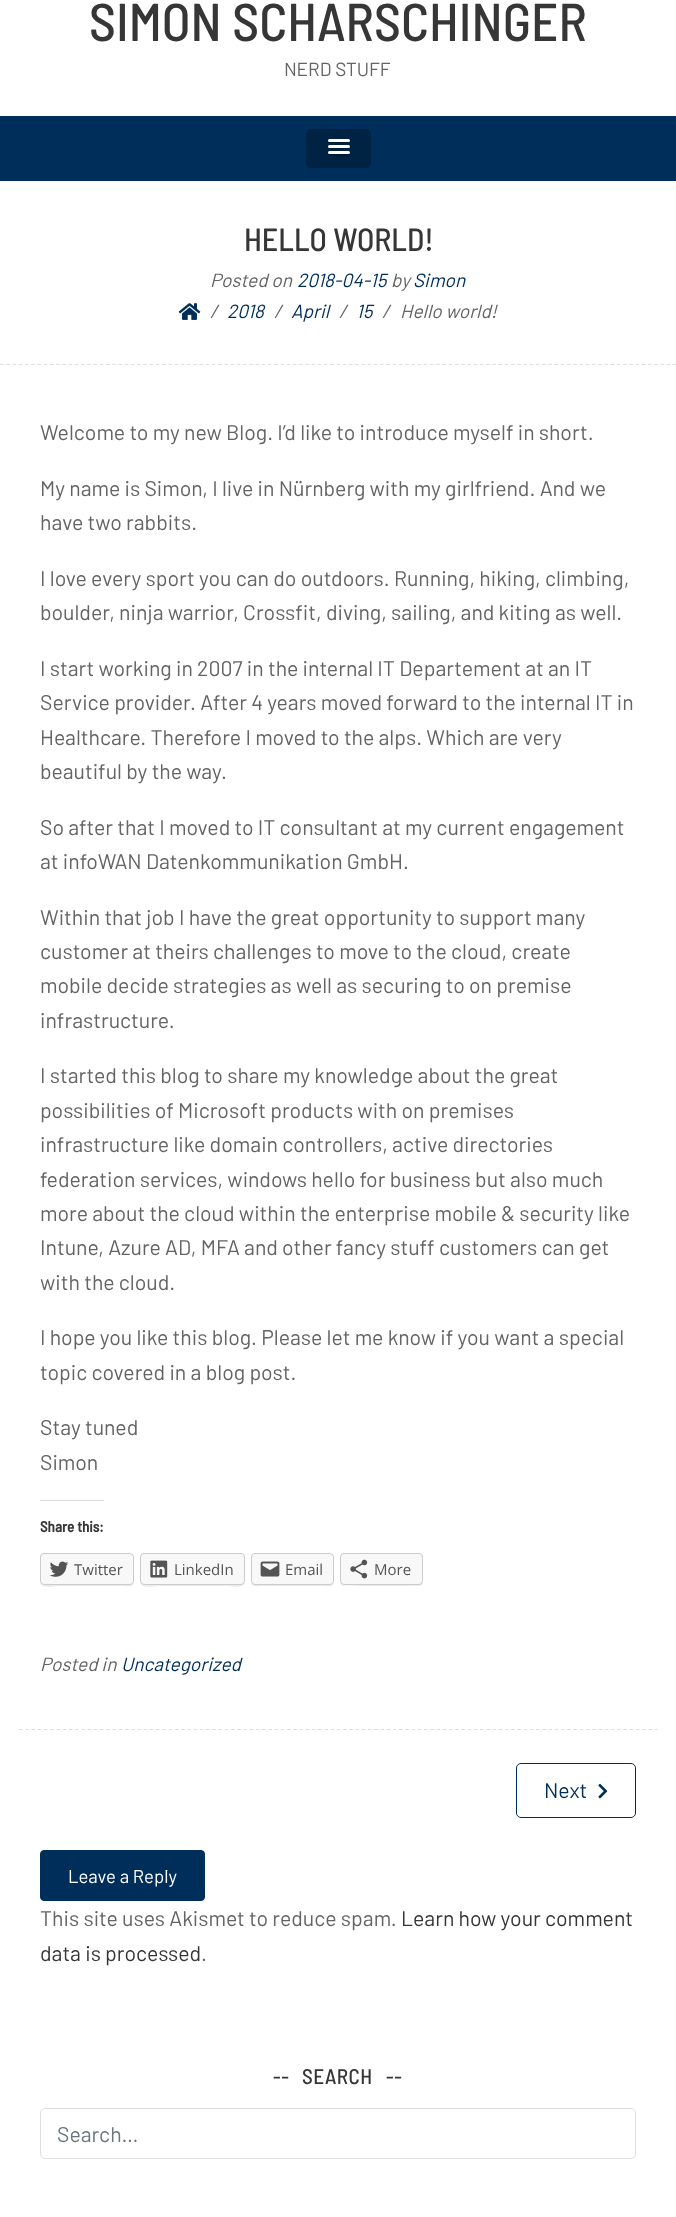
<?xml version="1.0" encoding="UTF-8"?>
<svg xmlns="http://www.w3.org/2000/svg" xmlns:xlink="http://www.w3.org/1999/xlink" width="676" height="2217">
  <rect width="100%" height="100%" fill="#ffffff" />
  <rect y="116" width="676" height="65" fill="#002e5b" />
  <rect x="306" y="129" width="65" height="39" rx="5" fill="#002344" />
  <path d="M 328 141 c -0.5 2.5 4 2 4.5 2 h 13 c 0.5 0 6 0.5 4.5 -2.5 l -1 0.5 z" fill="#001a33" />
  <rect x="328" y="139" width="22" height="3" rx="1.5" fill="#ffffff" />
  <path d="M 328 147.5 c -0.5 2 3.5 1.5 4.5 1.5 h 13 c 0.5 0 5.5 0.5 4.5 -2 l -1 0.5 c -2 0 -20.5 0 -21 0 z" fill="#001a33" />
  <rect x="328" y="145" width="22" height="3" rx="1.5" fill="#ffffff" />
  <path d="M 328.5 153.5 c -2 3 3.5 2.5 4 2.5 h 6.5 c 2 0 10 0.5 10.5 -0.5 c 0.5 -0.5 0.5 -1.5 0 -2 c -0.5 0.5 -20 0.5 -21 0 z" fill="#001a33" />
  <rect x="328" y="151" width="22" height="3" rx="1.5" fill="#ffffff" />
  <path d="M 0 364.5 h 676" fill="none" stroke="#dfdfdf" stroke-width="1.2" stroke-dasharray="3.75 2.48" />
  <image x="178" y="303" width="23" height="17" xlink:href="image1.png" />
  <path d="M 19 1729.5 h 638.5" fill="none" stroke="#dfdfdf" stroke-width="1.2" stroke-dasharray="3.75 2.48" />
  <rect x="40" y="1500" width="64" height="1" fill="#dddddd" />
  <path d="M 40 1581 c 0 9 15 5 18 5 h 58 c 18 0 18 4 18 -12 v -17 v 24 c 0 2 -2 4 -4 4 h -86 c -2 0 -4 -2 -4 -4 z" fill="#ebebeb" />
  <rect x="40.5" y="1553.5" width="93" height="31" rx="3.5" fill="#f8f8f8" stroke="#cccccc" />
  <image x="49" y="1561" width="20" height="16" xlink:href="image2.png" />
  <path d="M 140 1581 c 0 9 17 5 20 5 h 65 c 3 0 20 4 20 -5 c 0 2 -2 4 -4 4 h -97 c -2 0 -4 -2 -4 -4 z" fill="#ebebeb" />
  <rect x="140.5" y="1553.5" width="104" height="31" rx="3.5" fill="#f8f8f8" stroke="#cccccc" />
  <image x="150" y="1560" width="18" height="18" xlink:href="image3.png" />
  <path d="M 251 1557 v 17 c 0 15 0 12 17 12 h 50 c 16 0 16 3 16 -12 v -17 v 24 c 0 2 -2 4 -4 4 h -75 c -2 0 -4 -2 -4 -4 z" fill="#ebebeb" />
  <rect x="251.5" y="1553.5" width="82" height="31" rx="3.5" fill="#f8f8f8" stroke="#cccccc" />
  <image x="260" y="1561" width="20" height="16" xlink:href="image4.png" />
  <path d="M 340 1581 v 1 c 0 2 2 4 4 4 h 75 c 2 0 4 -2 4 -4 v -24 l -1 -2 v 21 c 0 11 -3 8 -16 8 h -50 c 0 0 -16 3 -16 -4 z" fill="#ebebeb" />
  <rect x="340.5" y="1553.5" width="82" height="31" rx="3.5" fill="#f8f8f8" stroke="#cccccc" />
  <image x="350" y="1559" width="18" height="20" xlink:href="image5.png" />
  <rect x="516.5" y="1763.5" width="119" height="54" rx="4.5" fill="none" stroke="#002e5b" />
  <image x="598" y="1784" width="10" height="15" xlink:href="image6.png" />
  <rect x="40.5" y="1850.5" width="164" height="50" rx="3.5" fill="#002e5b" stroke="#002e5b" />
  <rect x="40.5" y="2108.5" width="595" height="50" rx="4.5" fill="none" stroke="#dfdfdf" />
  <text x="89" y="41" style="font-family: Barlow Semi Condensed; font-size: 53.1px; font-weight: 500; fill: #363636">SIMON SCHARSCHINGER</text>
  <text x="284" y="76" style="font-family: Barlow; font-size: 19px; fill: #646464">NERD STUFF</text>
  <text x="244" y="251" style="font-family: Barlow Semi Condensed; font-size: 32px; font-weight: 500; fill: #363636">HELLO WORLD!</text>
  <text x="210" y="287" style="font-family: Barlow; font-size: 19px; font-style: italic; fill: #646464">Posted on</text>
  <text x="297" y="287" style="font-family: Barlow; font-size: 19px; font-style: italic; fill: #002e5b">2018-04-15</text>
  <text x="391" y="287" style="font-family: Barlow; font-size: 19px; font-style: italic; fill: #646464">by</text>
  <text x="413" y="287" style="font-family: Barlow; font-size: 19px; font-style: italic; fill: #002e5b">Simon</text>
  <text x="210" y="318" style="font-family: Barlow; font-size: 19px; font-style: italic; fill: #646464">/</text>
  <text x="227" y="318" style="font-family: Barlow; font-size: 19px; font-style: italic; fill: #002e5b">2018</text>
  <text x="274" y="318" style="font-family: Barlow; font-size: 19px; font-style: italic; fill: #646464">/</text>
  <text x="291" y="318" style="font-family: Barlow; font-size: 19px; font-style: italic; fill: #002e5b">April</text>
  <text x="339" y="318" style="font-family: Barlow; font-size: 19px; font-style: italic; fill: #646464">/</text>
  <text x="356" y="318" style="font-family: Barlow; font-size: 19px; font-style: italic; fill: #002e5b">15</text>
  <text x="382" y="318" style="font-family: Barlow; font-size: 19px; font-style: italic; fill: #646464">/</text>
  <text x="400" y="318" style="font-family: Barlow; font-size: 19px; font-style: italic; fill: #646464">Hello world!</text>
  <text x="40" y="440" style="font-family: Barlow; font-size: 21.25px; fill: #646464">Welcome to my new Blog. I’d like to introduce myself in short.</text>
  <text x="40" y="496" style="font-family: Barlow; font-size: 21.25px; fill: #646464">My name is Simon, I live in Nürnberg with my girlfriend. And we</text>
  <text x="40" y="530" style="font-family: Barlow; font-size: 21.25px; fill: #646464">have two rabbits.</text>
  <text x="40" y="586" style="font-family: Barlow; font-size: 21.25px; fill: #646464">I love every sport you can do outdoors. Running, hiking, climbing,</text>
  <text x="40" y="620" style="font-family: Barlow; font-size: 21.25px; fill: #646464">boulder, ninja warrior, Crossfit, diving, sailing, and kiting as well.</text>
  <text x="40" y="676" style="font-family: Barlow; font-size: 21.25px; fill: #646464">I start working in 2007 in the internal IT Departement at an IT</text>
  <text x="40" y="710" style="font-family: Barlow; font-size: 21.25px; fill: #646464">Service provider. After 4 years moved forward to the internal IT in</text>
  <text x="40" y="745" style="font-family: Barlow; font-size: 21.25px; fill: #646464">Healthcare. Therefore I moved to the alps. Which are very</text>
  <text x="40" y="779" style="font-family: Barlow; font-size: 21.25px; fill: #646464">beautiful by the way.</text>
  <text x="40" y="835" style="font-family: Barlow; font-size: 21.25px; fill: #646464">So after that I moved to IT consultant at my current engagement</text>
  <text x="40" y="869" style="font-family: Barlow; font-size: 21.25px; fill: #646464">at infoWAN Datenkommunikation GmbH.</text>
  <text x="40" y="925" style="font-family: Barlow; font-size: 21.25px; fill: #646464">Within that job I have the great opportunity to support many</text>
  <text x="40" y="959" style="font-family: Barlow; font-size: 21.25px; fill: #646464">customer at theirs challenges to move to the cloud, create</text>
  <text x="40" y="993" style="font-family: Barlow; font-size: 21.25px; fill: #646464">mobile decide strategies as well as securing to on premise</text>
  <text x="40" y="1028" style="font-family: Barlow; font-size: 21.25px; fill: #646464">infrastructure.</text>
  <text x="40" y="1083" style="font-family: Barlow; font-size: 21.25px; fill: #646464">I started this blog to share my knowledge about the great</text>
  <text x="40" y="1118" style="font-family: Barlow; font-size: 21.25px; fill: #646464">possibilities of Microsoft products with on premises</text>
  <text x="40" y="1152" style="font-family: Barlow; font-size: 21.25px; fill: #646464">infrastructure like domain controllers, active directories</text>
  <text x="40" y="1187" style="font-family: Barlow; font-size: 21.25px; fill: #646464">federation services, windows hello for business but also much</text>
  <text x="40" y="1221" style="font-family: Barlow; font-size: 21.25px; fill: #646464">more about the cloud within the enterprise mobile &amp; security like</text>
  <text x="40" y="1255" style="font-family: Barlow; font-size: 21.25px; fill: #646464">Intune, Azure AD, MFA and other fancy stuff customers can get</text>
  <text x="40" y="1290" style="font-family: Barlow; font-size: 21.25px; fill: #646464">with the cloud.</text>
  <text x="40" y="1345" style="font-family: Barlow; font-size: 21.25px; fill: #646464">I hope you like this blog. Please let me know if you want a special</text>
  <text x="40" y="1380" style="font-family: Barlow; font-size: 21.25px; fill: #646464">topic covered in a blog post.</text>
  <text x="40" y="1435" style="font-family: Barlow; font-size: 21.25px; fill: #646464">Stay tuned</text>
  <text x="40" y="1470" style="font-family: Barlow; font-size: 21.25px; fill: #646464">Simon</text>
  <text x="40" y="1532" style="font-family: Barlow Semi Condensed; font-size: 15px; font-weight: bold; fill: #363636">Share this:</text>
  <text x="74" y="1575" style="font-family: Open Sans; font-size: 15px; fill: #545454">Twitter</text>
  <text x="174" y="1575" style="font-family: Open Sans; font-size: 15px; fill: #545454">LinkedIn</text>
  <text x="285" y="1575" style="font-family: Open Sans; font-size: 15px; fill: #545454">Email</text>
  <text x="374" y="1575" style="font-family: Open Sans; font-size: 15px; fill: #545454">More</text>
  <text x="40" y="1671" style="font-family: Barlow; font-size: 19px; font-style: italic; fill: #646464">Posted in</text>
  <text x="121" y="1671" style="font-family: Barlow; font-size: 19px; font-style: italic; fill: #002e5b">Uncategorized</text>
  <text x="544" y="1798" style="font-family: Barlow; font-size: 21.25px; fill: #002e5b">Next</text>
  <text x="68" y="1883" style="font-family: Barlow; font-size: 18.5px; fill: #ffffff">Leave a Reply</text>
  <text x="40" y="1926" style="font-family: Barlow; font-size: 21.25px; fill: #646464">This site uses Akismet to reduce spam.</text>
  <text x="401" y="1926" style="font-family: Barlow; font-size: 21.25px; fill: #363636">Learn how your comment</text>
  <text x="40" y="1961" style="font-family: Barlow; font-size: 21.25px; fill: #363636">data is processed</text>
  <text x="201" y="1961" style="font-family: Barlow; font-size: 21.25px; fill: #646464">.</text>
  <text x="273" y="2084" style="font-family: Barlow Semi Condensed; font-size: 21.25px; font-weight: 500; letter-spacing: 0.5px; fill: #363636">--</text>
  <text x="302" y="2084" style="font-family: Barlow Semi Condensed; font-size: 21.25px; font-weight: 500; letter-spacing: 0.5px; fill: #363636">SEARCH</text>
  <text x="386" y="2084" style="font-family: Barlow Semi Condensed; font-size: 21.25px; font-weight: 500; letter-spacing: 0.5px; fill: #363636">--</text>
  <text x="57" y="2142" style="font-family: Barlow; font-size: 21.25px; fill: #6c757d">Search…</text>
</svg>
